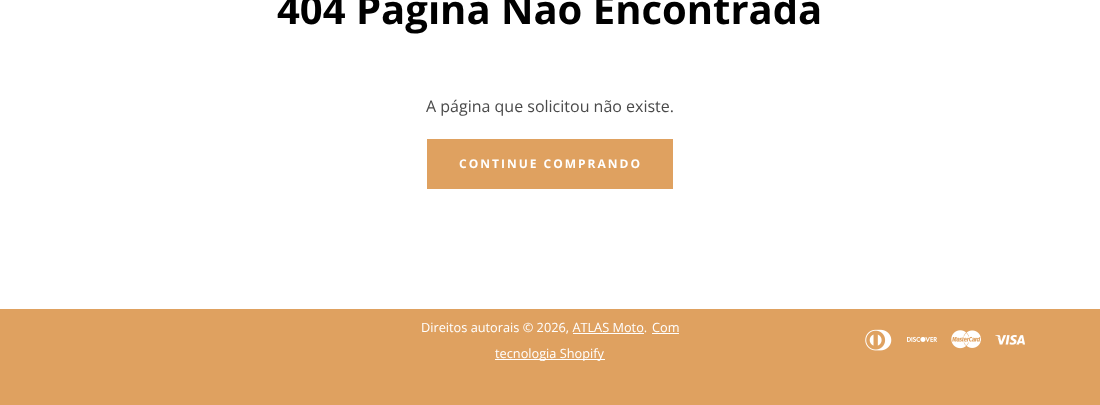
<?xml version="1.0" encoding="UTF-8"?>
<svg xmlns="http://www.w3.org/2000/svg" xmlns:xlink="http://www.w3.org/1999/xlink" width="1100" height="405">
  <rect width="100%" height="100%" fill="#dfa160" />
  <rect width="1100" height="309" fill="#ffffff" />
  <rect x="427" y="139" width="246" height="50" fill="#dfa160" />
  <rect x="573" y="333" width="71" height="1" fill="#ffffff" />
  <rect x="652" y="333" width="27" height="1" fill="#ffffff" />
  <rect x="495" y="359" width="110" height="1" fill="#ffffff" />
  <image x="865" y="329" width="27" height="22" xlink:href="image1.png" />
  <image x="907" y="336" width="30" height="6" xlink:href="image2.png" />
  <image x="951" y="330" width="30" height="19" xlink:href="image3.png" />
  <image x="995" y="335" width="30" height="10" xlink:href="image4.png" />
  <text x="277" y="24" style="font-family: Open Sans; font-size: 40px; font-weight: bold; fill: #000000">404 Página Não Encontrada</text>
  <text x="426" y="112" style="font-family: Open Sans; font-size: 16px; fill: #4a4a4a">A página que solicitou não existe.</text>
  <text x="459" y="168" style="font-family: Open Sans; font-size: 12px; font-weight: bold; letter-spacing: 2px; fill: #ffffff">CONTINUE COMPRANDO</text>
  <text x="421" y="332" style="font-family: Open Sans; font-size: 12.75px; fill: #ffffff">Direitos autorais © 2026, ATLAS Moto.</text>
  <text x="652" y="332" style="font-family: Open Sans; font-size: 12.75px; fill: #ffffff">Com</text>
  <text x="495" y="358" style="font-family: Open Sans; font-size: 12.75px; fill: #ffffff">tecnologia Shopify</text>
</svg>
